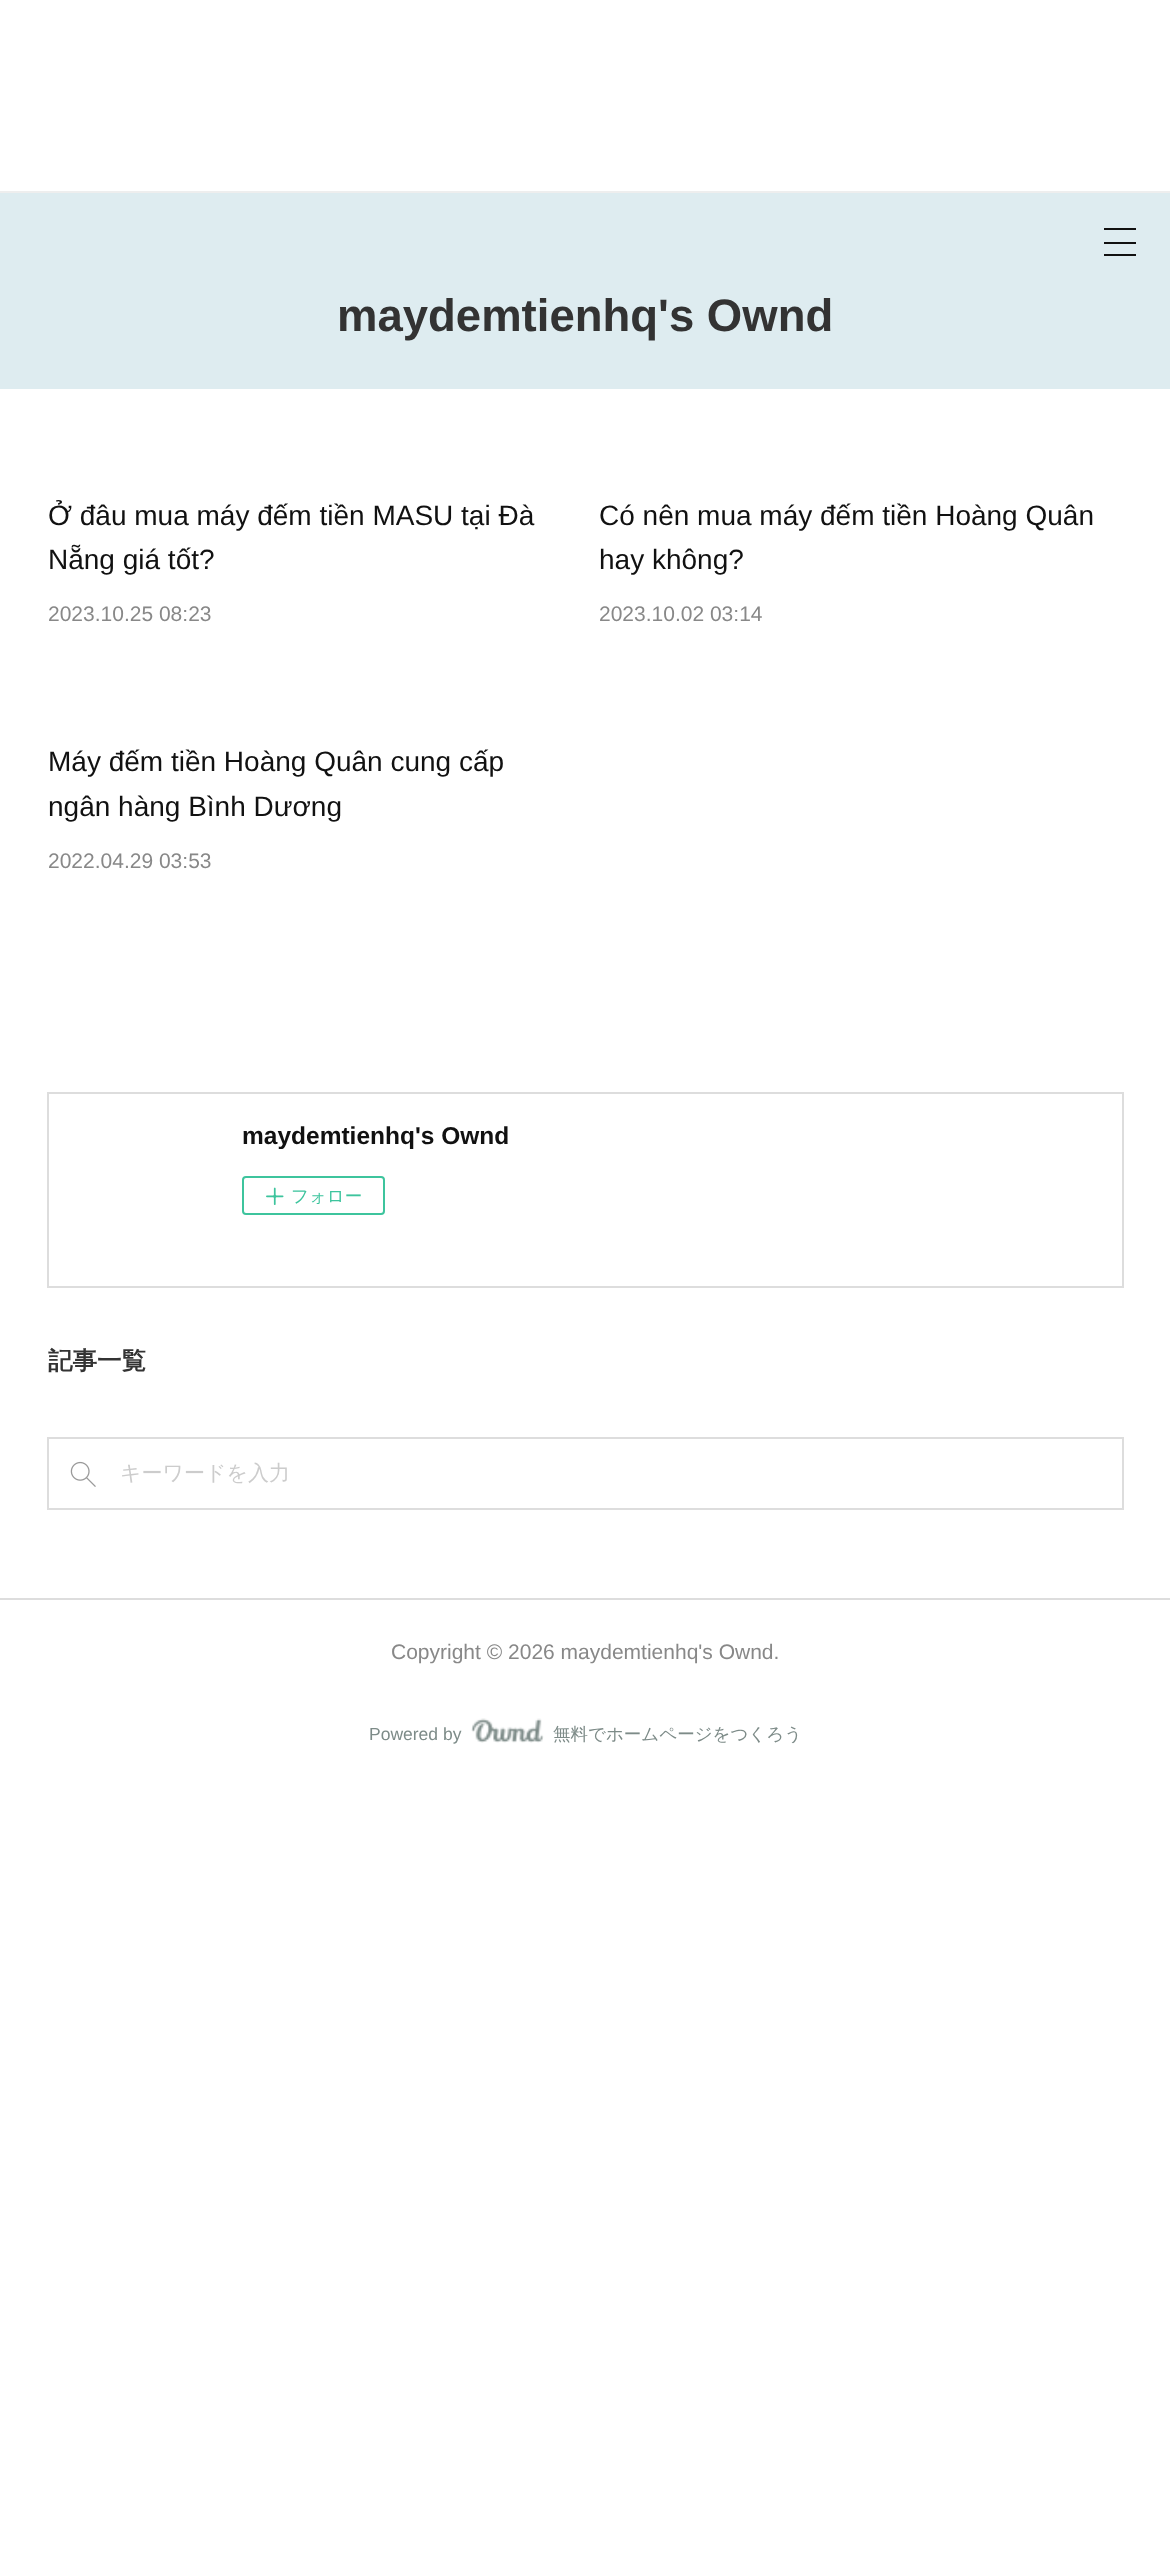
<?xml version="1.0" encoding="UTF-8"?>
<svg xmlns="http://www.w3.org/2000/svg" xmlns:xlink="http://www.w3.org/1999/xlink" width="1170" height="2573">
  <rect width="100%" height="100%" fill="#ffffff" />
  <rect y="191" width="1170" height="2" fill="#eeeeee" />
  <rect y="193" width="1170" height="196" fill="#deecf0" />
  <rect x="1104" y="228" width="32" height="2" fill="#111111" />
  <rect x="1104" y="242" width="32" height="2" fill="#111111" />
  <rect x="1104" y="254" width="32" height="2" fill="#111111" />
  <rect x="48" y="1093" width="1075" height="194" fill="none" stroke="#dddddd" stroke-width="2" />
  <rect x="243" y="1177" width="141" height="37" rx="3" fill="none" stroke="#3dc49d" stroke-width="2" />
  <image x="266" y="1187" width="18" height="18" xlink:href="image1.png" />
  <rect x="48" y="1438" width="1075" height="71" fill="none" stroke="#dddddd" stroke-width="2" />
  <image x="70" y="1461" width="26" height="26" xlink:href="image2.png" />
  <rect y="1598" width="1170" height="2" fill="#dddddd" />
  <image x="471" y="1718" width="73" height="25" xlink:href="image3.png" />
  <text x="337" y="331" style="font-family: Liberation Sans; font-size: 45.5px; font-weight: bold; fill: #333333">maydemtienhq's Ownd</text>
  <text x="48" y="525" style="font-family: Liberation Sans; font-size: 28px; fill: #111111">Ở đâu mua máy đếm tiền MASU tại Đà</text>
  <text x="48" y="569" style="font-family: Liberation Sans; font-size: 28px; fill: #111111">Nẵng giá tốt?</text>
  <text x="48" y="621" style="font-family: Liberation Sans; font-size: 21px; fill: #888888">2023.10.25 08:23</text>
  <text x="599" y="525" style="font-family: Liberation Sans; font-size: 28px; fill: #111111">Có nên mua máy đếm tiền Hoàng Quân</text>
  <text x="599" y="569" style="font-family: Liberation Sans; font-size: 28px; fill: #111111">hay không?</text>
  <text x="599" y="621" style="font-family: Liberation Sans; font-size: 21px; fill: #888888">2023.10.02 03:14</text>
  <text x="48" y="771" style="font-family: Liberation Sans; font-size: 28px; fill: #111111">Máy đếm tiền Hoàng Quân cung cấp</text>
  <text x="48" y="816" style="font-family: Liberation Sans; font-size: 28px; fill: #111111">ngân hàng Bình Dương</text>
  <text x="48" y="868" style="font-family: Liberation Sans; font-size: 21px; fill: #888888">2022.04.29 03:53</text>
  <text x="242" y="1144" style="font-family: Liberation Sans; font-size: 24.5px; font-weight: bold; fill: #111111">maydemtienhq's Ownd</text>
  <text x="291" y="1202" style="font-family: WenQuanYi Zen Hei; font-size: 17.5px; font-weight: 500; fill: #3dc49d">フォロー</text>
  <text x="48" y="1369" style="font-family: WenQuanYi Zen Hei; font-size: 24.5px; font-weight: bold; fill: #333333">記事一覧</text>
  <text x="120" y="1480" style="font-family: WenQuanYi Zen Hei; font-size: 21px; font-weight: 500; fill: #cccccc">キーワードを入力</text>
  <text x="391" y="1659" style="font-family: Liberation Sans; font-size: 21px; fill: #888888">Copyright © 2026 maydemtienhq's Ownd.</text>
  <text x="369" y="1740" style="font-family: Liberation Sans; font-size: 17.5px; fill: #7d8b88">Powered by</text>
  <text x="553" y="1740" style="font-family: WenQuanYi Zen Hei; font-size: 17.5px; font-weight: 500; fill: #7d8b88">無料でホームページをつくろう</text>
</svg>
